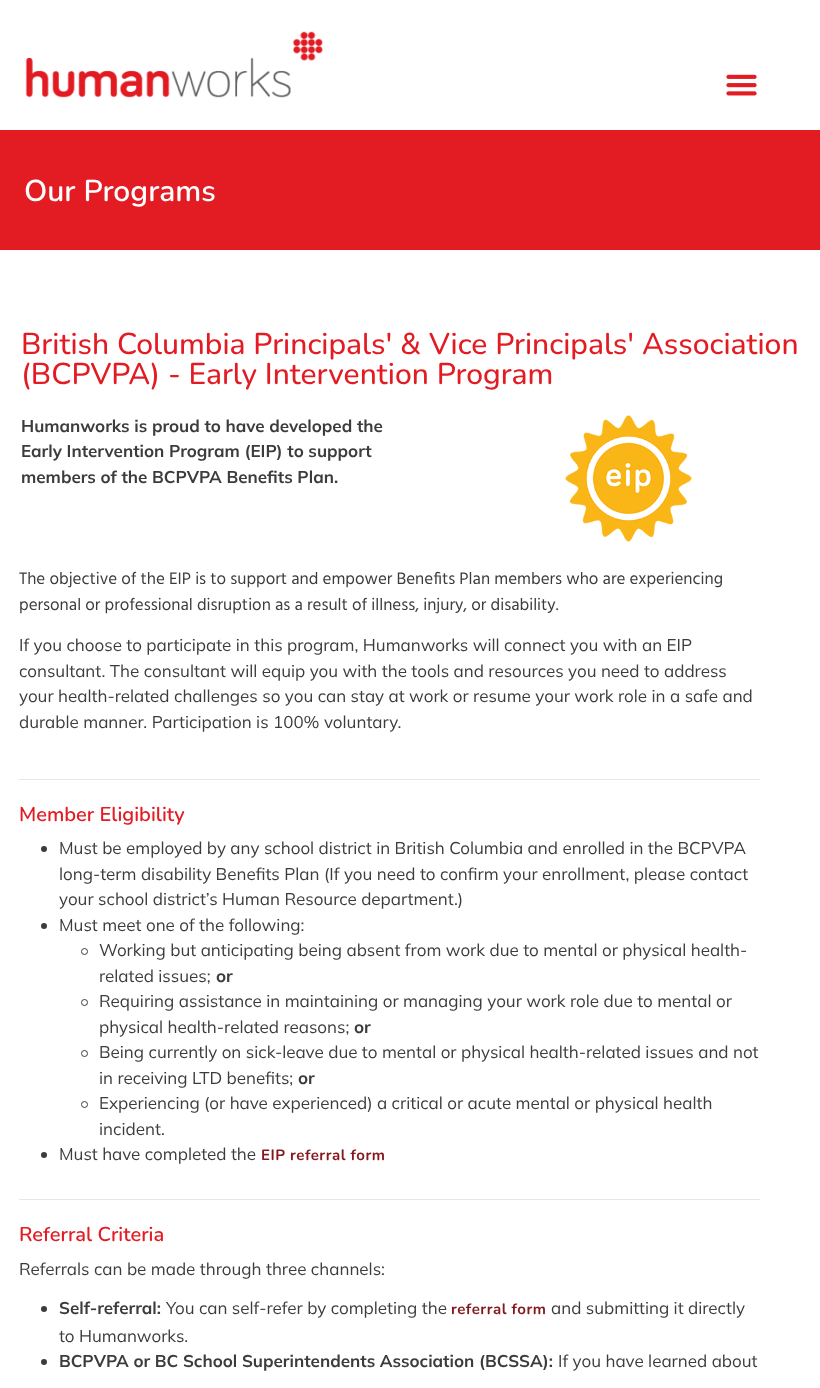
<?xml version="1.0" encoding="UTF-8"?>
<svg xmlns="http://www.w3.org/2000/svg" xmlns:xlink="http://www.w3.org/1999/xlink" width="820" height="1388">
  <rect width="100%" height="100%" fill="#ffffff" />
  <image x="25" y="31" width="298" height="67" xlink:href="image1.png" />
  <image x="726" y="74" width="31" height="22" xlink:href="image2.png" />
  <rect y="130" width="820" height="120" fill="#e31b23" />
  <image x="565" y="415" width="127" height="127" xlink:href="image3.png" />
  <rect x="19" y="779" width="741" height="1" fill="#e6e6e6" />
  <circle cx="44" cy="849" r="3" fill="#3c3c3c" />
  <circle cx="44" cy="926" r="3" fill="#3c3c3c" />
  <circle cx="84.5" cy="951.5" r="3" fill="none" stroke="#3c3c3c" />
  <circle cx="84.5" cy="1002.5" r="3" fill="none" stroke="#3c3c3c" />
  <circle cx="84.5" cy="1053.5" r="3" fill="none" stroke="#3c3c3c" />
  <circle cx="84.5" cy="1104.5" r="3" fill="none" stroke="#3c3c3c" />
  <circle cx="44" cy="1155" r="3" fill="#3c3c3c" />
  <rect x="19" y="1199" width="741" height="1" fill="#e6e6e6" />
  <circle cx="44" cy="1309" r="3" fill="#3c3c3c" />
  <circle cx="44" cy="1362" r="3" fill="#3c3c3c" />
  <text x="24" y="201" style="font-family: Nunito; font-size: 30px; font-weight: 600; fill: #ffffff">Our Programs</text>
  <text x="21" y="354" style="font-family: Nunito; font-size: 30px; font-weight: 500; fill: #e31b23">British Columbia Principals' &amp; Vice Principals' Association</text>
  <text x="21" y="384" style="font-family: Nunito; font-size: 30px; font-weight: 500; fill: #e31b23">(BCPVPA) - Early Intervention Program</text>
  <text x="21" y="432" style="font-family: Mulish; font-size: 17px; font-weight: bold; fill: #3c3c3c">Humanworks is proud to have developed the</text>
  <text x="21" y="457" style="font-family: Mulish; font-size: 17px; font-weight: bold; fill: #3c3c3c">Early Intervention Program (EIP) to support</text>
  <text x="21" y="483" style="font-family: Mulish; font-size: 17px; font-weight: bold; fill: #3c3c3c">members of the BCPVPA Benefits Plan.</text>
  <text x="19" y="584" style="font-family: Hind; font-size: 17px; fill: #3c3c3c">The objective of the EIP is to support and empower Benefits Plan members who are experiencing</text>
  <text x="19" y="610" style="font-family: Hind; font-size: 17px; fill: #3c3c3c">personal or professional disruption as a result of illness, injury, or disability.</text>
  <text x="19" y="651" style="font-family: Mulish; font-size: 17px; fill: #3c3c3c">If you choose to participate in this program, Humanworks will connect you with an EIP</text>
  <text x="19" y="677" style="font-family: Mulish; font-size: 17px; fill: #3c3c3c">consultant. The consultant will equip you with the tools and resources you need to address</text>
  <text x="19" y="702" style="font-family: Mulish; font-size: 17px; fill: #3c3c3c">your health-related challenges so you can stay at work or resume your work role in a safe and</text>
  <text x="19" y="728" style="font-family: Mulish; font-size: 17px; fill: #3c3c3c">durable manner. Participation is 100% voluntary.</text>
  <text x="19" y="821" style="font-family: Nunito; font-size: 20px; font-weight: 600; fill: #e31b23">Member Eligibility</text>
  <text x="59" y="854" style="font-family: Mulish; font-size: 17px; fill: #3c3c3c">Must be employed by any school district in British Columbia and enrolled in the BCPVPA</text>
  <text x="59" y="880" style="font-family: Mulish; font-size: 17px; fill: #3c3c3c">long-term disability Benefits Plan (If you need to confirm your enrollment, please contact</text>
  <text x="59" y="905" style="font-family: Mulish; font-size: 17px; fill: #3c3c3c">your school district’s Human Resource department.)</text>
  <text x="59" y="931" style="font-family: Mulish; font-size: 17px; fill: #3c3c3c">Must meet one of the following:</text>
  <text x="99" y="956" style="font-family: Mulish; font-size: 17px; fill: #3c3c3c">Working but anticipating being absent from work due to mental or physical health-</text>
  <text x="99" y="982" style="font-family: Mulish; font-size: 17px; fill: #3c3c3c">related issues;</text>
  <text x="216" y="982" style="font-family: Mulish; font-size: 17px; font-weight: bold; fill: #3c3c3c">or</text>
  <text x="99" y="1007" style="font-family: Mulish; font-size: 17px; fill: #3c3c3c">Requiring assistance in maintaining or managing your work role due to mental or</text>
  <text x="99" y="1033" style="font-family: Mulish; font-size: 17px; fill: #3c3c3c">physical health-related reasons;</text>
  <text x="354" y="1033" style="font-family: Mulish; font-size: 17px; font-weight: bold; fill: #3c3c3c">or</text>
  <text x="99" y="1058" style="font-family: Mulish; font-size: 17px; fill: #3c3c3c">Being currently on sick-leave due to mental or physical health-related issues and not</text>
  <text x="99" y="1084" style="font-family: Mulish; font-size: 17px; fill: #3c3c3c">in receiving LTD benefits;</text>
  <text x="298" y="1084" style="font-family: Mulish; font-size: 17px; font-weight: bold; fill: #3c3c3c">or</text>
  <text x="99" y="1109" style="font-family: Mulish; font-size: 17px; fill: #3c3c3c">Experiencing (or have experienced) a critical or acute mental or physical health</text>
  <text x="99" y="1135" style="font-family: Mulish; font-size: 17px; fill: #3c3c3c">incident.</text>
  <text x="59" y="1160" style="font-family: Mulish; font-size: 17px; fill: #3c3c3c">Must have completed the</text>
  <text x="261" y="1160" style="font-family: Nunito; font-size: 15px; font-weight: bold; letter-spacing: 0.5px; fill: #83191d">EIP referral form</text>
  <text x="19" y="1241" style="font-family: Nunito; font-size: 20px; font-weight: 600; fill: #e31b23">Referral Criteria</text>
  <text x="19" y="1275" style="font-family: Mulish; font-size: 17px; fill: #3c3c3c">Referrals can be made through three channels:</text>
  <text x="59" y="1314" style="font-family: Mulish; font-size: 17px; font-weight: bold; fill: #3c3c3c">Self-referral:</text>
  <text x="166" y="1314" style="font-family: Mulish; font-size: 17px; fill: #3c3c3c">You can self-refer by completing the</text>
  <text x="451" y="1314" style="font-family: Nunito; font-size: 15px; font-weight: bold; letter-spacing: 0.5px; fill: #83191d">referral form</text>
  <text x="551" y="1314" style="font-family: Mulish; font-size: 17px; fill: #3c3c3c">and submitting it directly</text>
  <text x="59" y="1342" style="font-family: Mulish; font-size: 17px; fill: #3c3c3c">to Humanworks.</text>
  <text x="59" y="1367" style="font-family: Mulish; font-size: 17px; font-weight: bold; fill: #3c3c3c">BCPVPA or BC School Superintendents Association (BCSSA):</text>
  <text x="558" y="1367" style="font-family: Mulish; font-size: 17px; fill: #3c3c3c">If you have learned about</text>
</svg>
